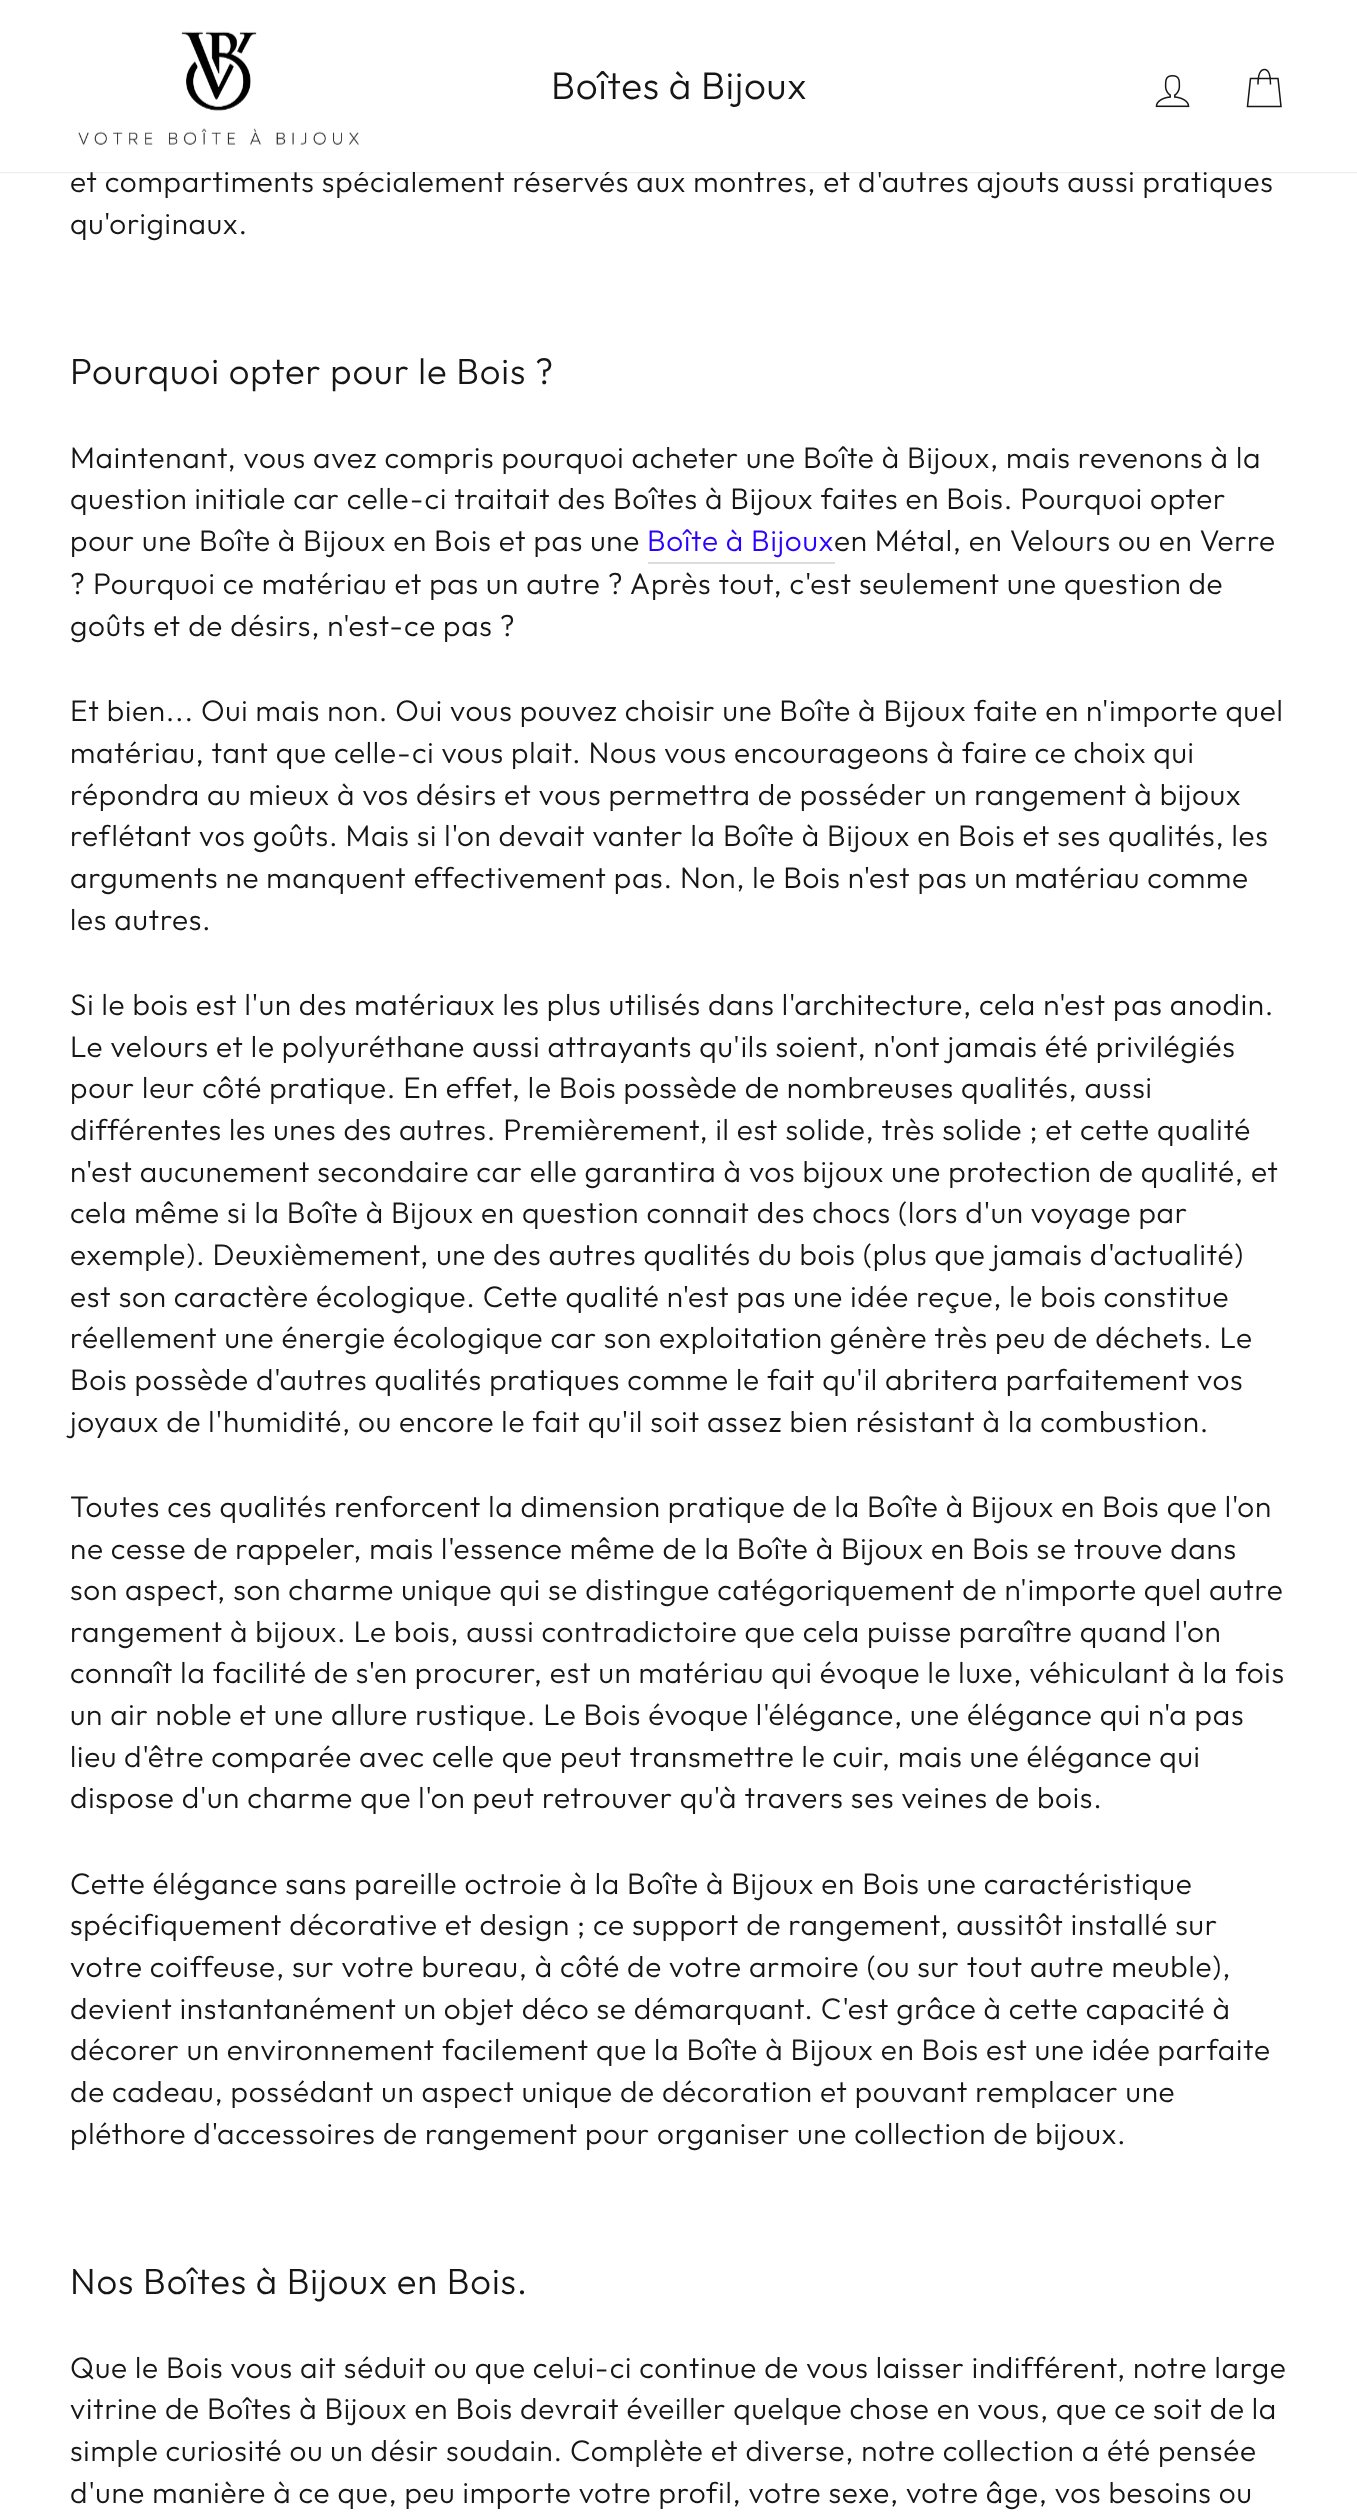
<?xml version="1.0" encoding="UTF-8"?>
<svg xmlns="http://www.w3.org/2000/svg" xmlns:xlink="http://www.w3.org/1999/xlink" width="1357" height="2518">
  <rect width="100%" height="100%" fill="#ffffff" />
  <rect width="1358" height="172" fill="#000000" fill-opacity="0.2" filter="blur(1px)" />
  <rect x="648" y="562" width="187" height="2" fill="#dcdcdc" />
  <text x="70" y="192" style="font-family: Outfit; font-size: 29.75px; font-weight: 300; letter-spacing: 0.75px; fill: #161616">et compartiments spécialement réservés aux montres, et d'autres ajouts aussi pratiques</text>
  <rect width="1357" height="172" fill="#ffffff" />
  <image x="78" y="31" width="281" height="114" xlink:href="image1.png" />
  <path d="M 1258 84.5 c 0 -12 3 -15 6.5 -15 c 3 0 6 3 6 15 m -20 -6 h 27.5 l 3 28 h -33.5 z" fill="none" stroke="#161616" stroke-width="1.5" />
  <image x="1155" y="75" width="35" height="33" xlink:href="image2.png" />
  <text x="551" y="99" style="font-family: Outfit; font-size: 38.5px; font-weight: 300; letter-spacing: 0.75px; fill: #161616">Boîtes à Bijoux</text>
  <text x="70" y="234" style="font-family: Outfit; font-size: 29.75px; font-weight: 300; letter-spacing: 0.75px; fill: #161616">qu'originaux.</text>
  <text x="70" y="384" style="font-family: Outfit; font-size: 36.4px; font-weight: 300; letter-spacing: 0.9px; fill: #161616">Pourquoi opter pour le Bois ?</text>
  <text x="70" y="468" style="font-family: Outfit; font-size: 29.75px; font-weight: 300; letter-spacing: 0.75px; fill: #161616">Maintenant, vous avez compris pourquoi acheter une Boîte à Bijoux, mais revenons à la</text>
  <text x="70" y="509" style="font-family: Outfit; font-size: 29.75px; font-weight: 300; letter-spacing: 0.75px; fill: #161616">question initiale car celle-ci traitait des Boîtes à Bijoux faites en Bois. Pourquoi opter</text>
  <text x="70" y="551" style="font-family: Outfit; font-size: 29.75px; font-weight: 300; letter-spacing: 0.75px; fill: #161616">pour une Boîte à Bijoux en Bois et pas une</text>
  <text x="647" y="551" style="font-family: Outfit; font-size: 29.75px; font-weight: 300; letter-spacing: 0.75px; fill: #2b00ff">Boîte à Bijoux</text>
  <text x="834" y="551" style="font-family: Outfit; font-size: 29.75px; font-weight: 300; letter-spacing: 0.75px; fill: #161616">en Métal, en Velours ou en Verre</text>
  <text x="70" y="594" style="font-family: Outfit; font-size: 29.75px; font-weight: 300; letter-spacing: 0.75px; fill: #161616">? Pourquoi ce matériau et pas un autre ? Après tout, c'est seulement une question de</text>
  <text x="70" y="636" style="font-family: Outfit; font-size: 29.75px; font-weight: 300; letter-spacing: 0.75px; fill: #161616">goûts et de désirs, n'est-ce pas ?</text>
  <text x="70" y="721" style="font-family: Outfit; font-size: 29.75px; font-weight: 300; letter-spacing: 0.75px; fill: #161616">Et bien... Oui mais non. Oui vous pouvez choisir une Boîte à Bijoux faite en n'importe quel</text>
  <text x="70" y="763" style="font-family: Outfit; font-size: 29.75px; font-weight: 300; letter-spacing: 0.75px; fill: #161616">matériau, tant que celle-ci vous plait. Nous vous encourageons à faire ce choix qui</text>
  <text x="70" y="805" style="font-family: Outfit; font-size: 29.75px; font-weight: 300; letter-spacing: 0.75px; fill: #161616">répondra au mieux à vos désirs et vous permettra de posséder un rangement à bijoux</text>
  <text x="70" y="846" style="font-family: Outfit; font-size: 29.75px; font-weight: 300; letter-spacing: 0.75px; fill: #161616">reflétant vos goûts. Mais si l'on devait vanter la Boîte à Bijoux en Bois et ses qualités, les</text>
  <text x="70" y="888" style="font-family: Outfit; font-size: 29.75px; font-weight: 300; letter-spacing: 0.75px; fill: #161616">arguments ne manquent effectivement pas. Non, le Bois n'est pas un matériau comme</text>
  <text x="70" y="930" style="font-family: Outfit; font-size: 29.75px; font-weight: 300; letter-spacing: 0.75px; fill: #161616">les autres.</text>
  <text x="70" y="1015" style="font-family: Outfit; font-size: 29.75px; font-weight: 300; letter-spacing: 0.75px; fill: #161616">Si le bois est l'un des matériaux les plus utilisés dans l'architecture, cela n'est pas anodin.</text>
  <text x="70" y="1057" style="font-family: Outfit; font-size: 29.75px; font-weight: 300; letter-spacing: 0.75px; fill: #161616">Le velours et le polyuréthane aussi attrayants qu'ils soient, n'ont jamais été privilégiés</text>
  <text x="70" y="1098" style="font-family: Outfit; font-size: 29.75px; font-weight: 300; letter-spacing: 0.75px; fill: #161616">pour leur côté pratique. En effet, le Bois possède de nombreuses qualités, aussi</text>
  <text x="70" y="1140" style="font-family: Outfit; font-size: 29.75px; font-weight: 300; letter-spacing: 0.75px; fill: #161616">différentes les unes des autres. Premièrement, il est solide, très solide ; et cette qualité</text>
  <text x="70" y="1182" style="font-family: Outfit; font-size: 29.75px; font-weight: 300; letter-spacing: 0.75px; fill: #161616">n'est aucunement secondaire car elle garantira à vos bijoux une protection de qualité, et</text>
  <text x="70" y="1223" style="font-family: Outfit; font-size: 29.75px; font-weight: 300; letter-spacing: 0.75px; fill: #161616">cela même si la Boîte à Bijoux en question connait des chocs (lors d'un voyage par</text>
  <text x="70" y="1265" style="font-family: Outfit; font-size: 29.75px; font-weight: 300; letter-spacing: 0.75px; fill: #161616">exemple). Deuxièmement, une des autres qualités du bois (plus que jamais d'actualité)</text>
  <text x="70" y="1307" style="font-family: Outfit; font-size: 29.75px; font-weight: 300; letter-spacing: 0.75px; fill: #161616">est son caractère écologique. Cette qualité n'est pas une idée reçue, le bois constitue</text>
  <text x="70" y="1348" style="font-family: Outfit; font-size: 29.75px; font-weight: 300; letter-spacing: 0.75px; fill: #161616">réellement une énergie écologique car son exploitation génère très peu de déchets. Le</text>
  <text x="70" y="1390" style="font-family: Outfit; font-size: 29.75px; font-weight: 300; letter-spacing: 0.75px; fill: #161616">Bois possède d'autres qualités pratiques comme le fait qu'il abritera parfaitement vos</text>
  <text x="70" y="1432" style="font-family: Outfit; font-size: 29.75px; font-weight: 300; letter-spacing: 0.75px; fill: #161616">joyaux de l'humidité, ou encore le fait qu'il soit assez bien résistant à la combustion.</text>
  <text x="70" y="1517" style="font-family: Outfit; font-size: 29.75px; font-weight: 300; letter-spacing: 0.75px; fill: #161616">Toutes ces qualités renforcent la dimension pratique de la Boîte à Bijoux en Bois que l'on</text>
  <text x="70" y="1559" style="font-family: Outfit; font-size: 29.75px; font-weight: 300; letter-spacing: 0.75px; fill: #161616">ne cesse de rappeler, mais l'essence même de la Boîte à Bijoux en Bois se trouve dans</text>
  <text x="70" y="1600" style="font-family: Outfit; font-size: 29.75px; font-weight: 300; letter-spacing: 0.75px; fill: #161616">son aspect, son charme unique qui se distingue catégoriquement de n'importe quel autre</text>
  <text x="70" y="1642" style="font-family: Outfit; font-size: 29.75px; font-weight: 300; letter-spacing: 0.75px; fill: #161616">rangement à bijoux. Le bois, aussi contradictoire que cela puisse paraître quand l'on</text>
  <text x="70" y="1683" style="font-family: Outfit; font-size: 29.75px; font-weight: 300; letter-spacing: 0.75px; fill: #161616">connaît la facilité de s'en procurer, est un matériau qui évoque le luxe, véhiculant à la fois</text>
  <text x="70" y="1725" style="font-family: Outfit; font-size: 29.75px; font-weight: 300; letter-spacing: 0.75px; fill: #161616">un air noble et une allure rustique. Le Bois évoque l'élégance, une élégance qui n'a pas</text>
  <text x="70" y="1767" style="font-family: Outfit; font-size: 29.75px; font-weight: 300; letter-spacing: 0.75px; fill: #161616">lieu d'être comparée avec celle que peut transmettre le cuir, mais une élégance qui</text>
  <text x="70" y="1808" style="font-family: Outfit; font-size: 29.75px; font-weight: 300; letter-spacing: 0.75px; fill: #161616">dispose d'un charme que l'on peut retrouver qu'à travers ses veines de bois.</text>
  <text x="70" y="1894" style="font-family: Outfit; font-size: 29.75px; font-weight: 300; letter-spacing: 0.75px; fill: #161616">Cette élégance sans pareille octroie à la Boîte à Bijoux en Bois une caractéristique</text>
  <text x="70" y="1935" style="font-family: Outfit; font-size: 29.75px; font-weight: 300; letter-spacing: 0.75px; fill: #161616">spécifiquement décorative et design ; ce support de rangement, aussitôt installé sur</text>
  <text x="70" y="1977" style="font-family: Outfit; font-size: 29.75px; font-weight: 300; letter-spacing: 0.75px; fill: #161616">votre coiffeuse, sur votre bureau, à côté de votre armoire (ou sur tout autre meuble),</text>
  <text x="70" y="2019" style="font-family: Outfit; font-size: 29.75px; font-weight: 300; letter-spacing: 0.75px; fill: #161616">devient instantanément un objet déco se démarquant. C'est grâce à cette capacité à</text>
  <text x="70" y="2060" style="font-family: Outfit; font-size: 29.75px; font-weight: 300; letter-spacing: 0.75px; fill: #161616">décorer un environnement facilement que la Boîte à Bijoux en Bois est une idée parfaite</text>
  <text x="70" y="2102" style="font-family: Outfit; font-size: 29.75px; font-weight: 300; letter-spacing: 0.75px; fill: #161616">de cadeau, possédant un aspect unique de décoration et pouvant remplacer une</text>
  <text x="70" y="2144" style="font-family: Outfit; font-size: 29.75px; font-weight: 300; letter-spacing: 0.75px; fill: #161616">pléthore d'accessoires de rangement pour organiser une collection de bijoux.</text>
  <text x="70" y="2294" style="font-family: Outfit; font-size: 36.4px; font-weight: 300; letter-spacing: 0.9px; fill: #161616">Nos Boîtes à Bijoux en Bois.</text>
  <text x="70" y="2378" style="font-family: Outfit; font-size: 29.75px; font-weight: 300; letter-spacing: 0.75px; fill: #161616">Que le Bois vous ait séduit ou que celui-ci continue de vous laisser indifférent, notre large</text>
  <text x="70" y="2419" style="font-family: Outfit; font-size: 29.75px; font-weight: 300; letter-spacing: 0.75px; fill: #161616">vitrine de Boîtes à Bijoux en Bois devrait éveiller quelque chose en vous, que ce soit de la</text>
  <text x="70" y="2461" style="font-family: Outfit; font-size: 29.75px; font-weight: 300; letter-spacing: 0.75px; fill: #161616">simple curiosité ou un désir soudain. Complète et diverse, notre collection a été pensée</text>
  <text x="70" y="2503" style="font-family: Outfit; font-size: 29.75px; font-weight: 300; letter-spacing: 0.75px; fill: #161616">d'une manière à ce que, peu importe votre profil, votre sexe, votre âge, vos besoins ou</text>
</svg>
